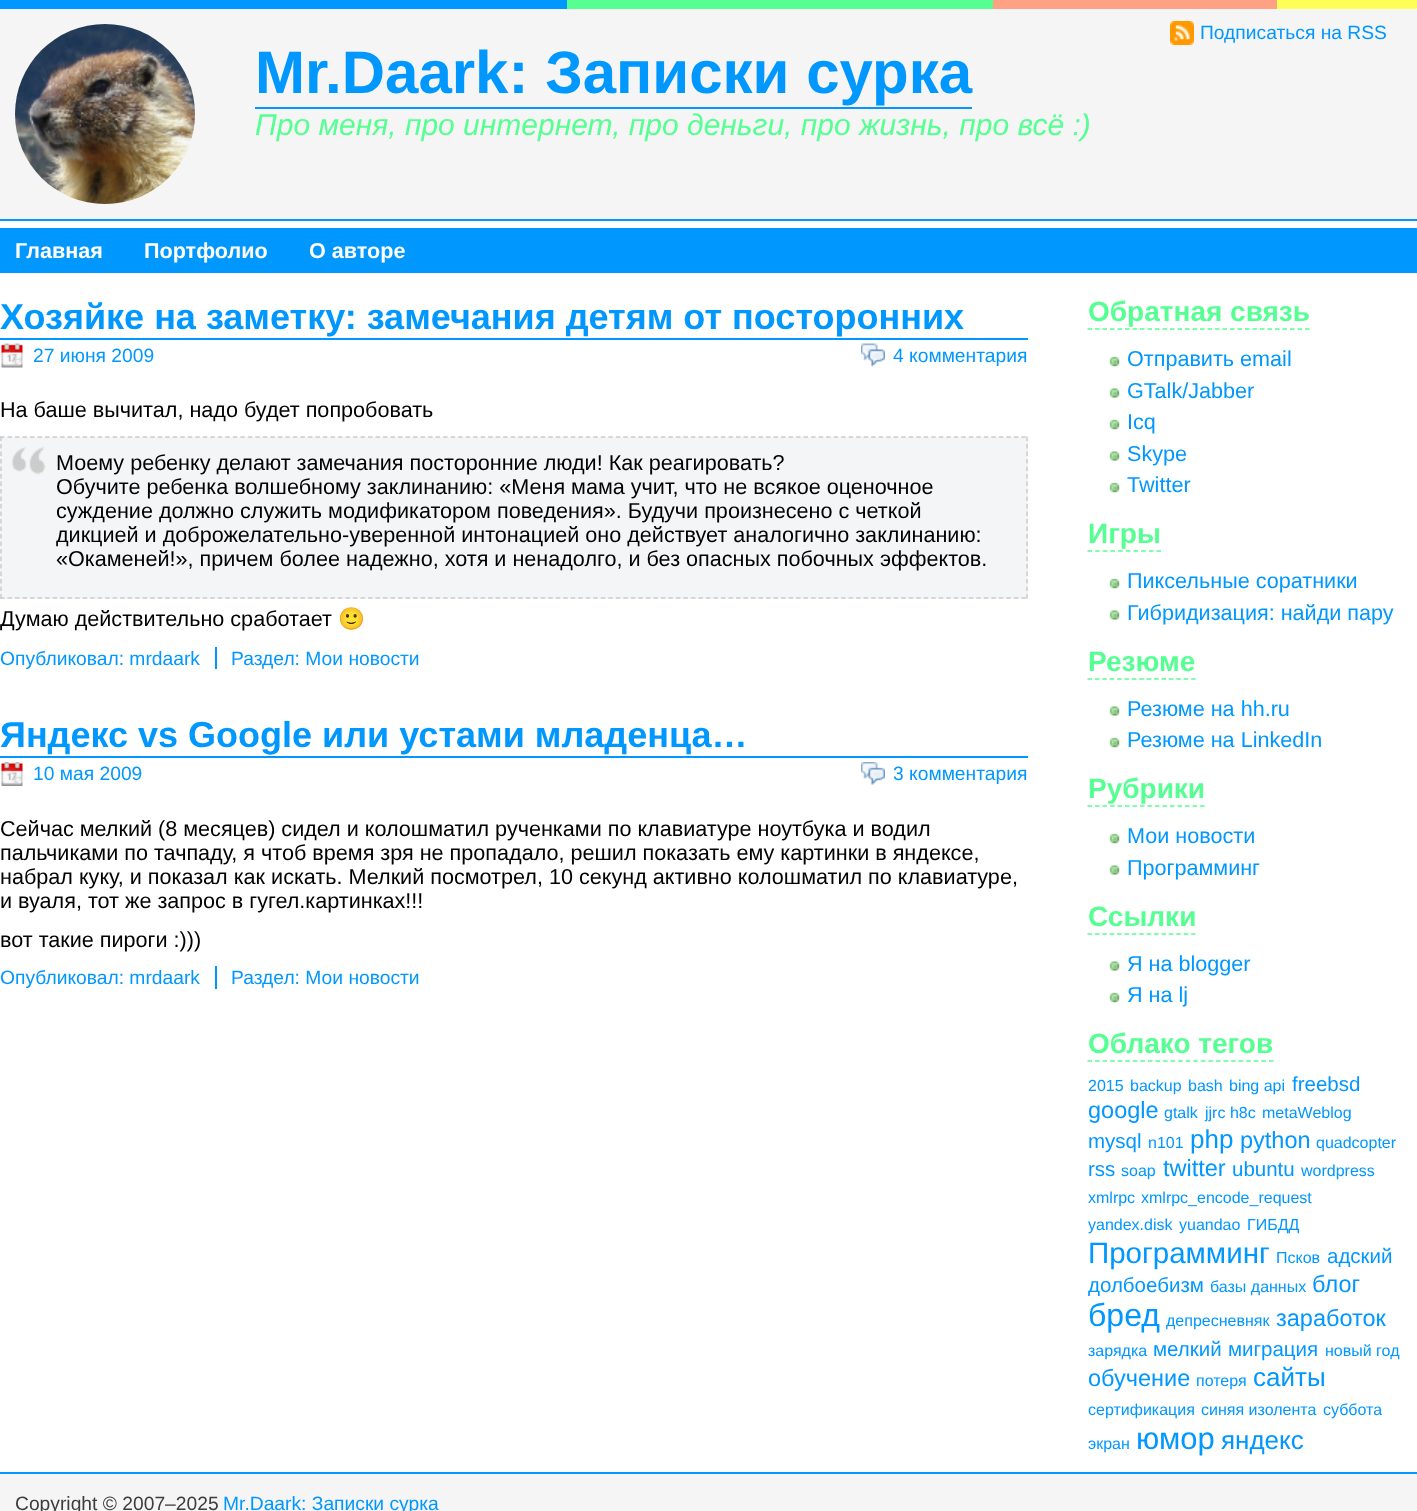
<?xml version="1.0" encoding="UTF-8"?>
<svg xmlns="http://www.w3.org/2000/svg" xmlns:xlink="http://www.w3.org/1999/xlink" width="1417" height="1511">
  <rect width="100%" height="100%" fill="#ffffff" />
  <rect y="9" width="1417" height="210" fill="#f5f5f5" />
  <rect y="219" width="1417" height="2" fill="#0097ff" />
  <rect width="567" height="9" fill="#0097ff" />
  <rect x="567" width="426" height="9" fill="#56ff92" />
  <rect x="993" width="284" height="9" fill="#ffa283" />
  <rect x="1277" width="140" height="9" fill="#feff57" />
  <image x="15" y="24" width="180" height="180" xlink:href="image1.png" />
  <image x="1170" y="21" width="24" height="24" xlink:href="image2.png" />
  <rect x="255" y="107" width="717" height="2" fill="#0097ff" />
  <rect y="228" width="1417" height="45" fill="#0097ff" />
  <rect y="338" width="1028" height="2" fill="#0097ff" />
  <image x="1" y="343" width="22" height="25" xlink:href="image3.png" />
  <image x="861" y="343" width="24" height="24" xlink:href="image4.png" />
  <rect y="437" width="1028" height="162" fill="#f4f5f7" />
  <image x="12" y="447" width="34" height="28" xlink:href="image5.png" />
  <path d="M 0 437 h 1027.5" fill="none" stroke="#cccccc" stroke-width="1.5" stroke-dasharray="4.5 3.01" />
  <path d="M 1027 436.5 v 162" fill="none" stroke="#cccccc" stroke-width="1.5" stroke-dasharray="4.5 3" />
  <path d="M 0 598 h 1027.5" fill="none" stroke="#cccccc" stroke-width="1.5" stroke-dasharray="4.5 3.01" />
  <path d="M 1 436.5 v 162" fill="none" stroke="#cccccc" stroke-width="1.5" stroke-dasharray="4.5 3" />
  <rect x="215" y="647" width="2" height="22" fill="#0097ff" />
  <rect y="756" width="1028" height="2" fill="#0097ff" />
  <image x="1" y="762" width="22" height="24" xlink:href="image6.png" />
  <image x="861" y="762" width="24" height="23" xlink:href="image7.png" />
  <rect x="215" y="966" width="2" height="23" fill="#0097ff" />
  <path d="M 1087.5 329 h 222" fill="none" stroke="#56ff92" stroke-width="1.5" stroke-dasharray="4.5 3" />
  <image x="1109" y="356" width="11" height="11" xlink:href="image8.png" />
  <image x="1109" y="388" width="11" height="10" xlink:href="image9.png" />
  <image x="1109" y="419" width="11" height="11" xlink:href="image8.png" />
  <image x="1109" y="451" width="11" height="10" xlink:href="image9.png" />
  <image x="1109" y="482" width="11" height="11" xlink:href="image8.png" />
  <path d="M 1087.5 551 h 73.5" fill="none" stroke="#56ff92" stroke-width="1.5" stroke-dasharray="4.5 3.17" />
  <image x="1109" y="578" width="11" height="11" xlink:href="image8.png" />
  <image x="1109" y="610" width="11" height="10" xlink:href="image9.png" />
  <path d="M 1087.5 679 h 108" fill="none" stroke="#56ff92" stroke-width="1.5" stroke-dasharray="4.5 2.9" />
  <image x="1109" y="706" width="11" height="10" xlink:href="image9.png" />
  <image x="1109" y="737" width="11" height="11" xlink:href="image8.png" />
  <path d="M 1087.5 806 h 117" fill="none" stroke="#56ff92" stroke-width="1.5" stroke-dasharray="4.5 3" />
  <image x="1109" y="833" width="11" height="11" xlink:href="image8.png" />
  <image x="1109" y="865" width="11" height="10" xlink:href="image9.png" />
  <path d="M 1087.5 934 h 108" fill="none" stroke="#56ff92" stroke-width="1.5" stroke-dasharray="4.5 2.9" />
  <image x="1109" y="961" width="11" height="10" xlink:href="image9.png" />
  <image x="1109" y="992" width="11" height="11" xlink:href="image8.png" />
  <path d="M 1087.5 1061 h 186" fill="none" stroke="#56ff92" stroke-width="1.5" stroke-dasharray="4.5 3.06" />
  <rect y="1474" width="1417" height="37" fill="#f5f5f5" />
  <rect y="1472" width="1417" height="2" fill="#0097ff" />
  <text x="1200" y="39" style="font-family: Liberation Sans; font-size: 19.25px; fill: #0097ff">Подписаться на RSS</text>
  <text x="255" y="93" style="font-family: Liberation Sans; font-size: 60px; font-weight: bold; fill: #0097ff">Mr.Daark: Записки сурка</text>
  <text x="255" y="135" style="font-family: Liberation Sans; font-size: 30px; font-style: italic; fill: #56ff92">Про меня, про интернет, про деньги, про жизнь, про всё :)</text>
  <text x="15" y="258" style="font-family: Liberation Sans; font-size: 21.6px; font-weight: bold; fill: #ffffff">Главная</text>
  <text x="144" y="258" style="font-family: Liberation Sans; font-size: 21.6px; font-weight: bold; fill: #ffffff">Портфолио</text>
  <text x="309" y="258" style="font-family: Liberation Sans; font-size: 21.6px; font-weight: bold; fill: #ffffff">О авторе</text>
  <text x="0" y="329" style="font-family: Liberation Sans; font-size: 36px; font-weight: bold; fill: #0097ff">Хозяйке на заметку: замечания детям от посторонних</text>
  <text x="33" y="362" style="font-family: Liberation Sans; font-size: 19.25px; fill: #0097ff">27 июня 2009</text>
  <text x="893" y="362" style="font-family: Liberation Sans; font-size: 19.25px; fill: #0097ff">4 комментария</text>
  <text x="0" y="417" style="font-family: Liberation Sans; font-size: 21.6px; fill: #000000">На баше вычитал, надо будет попробовать</text>
  <text x="56" y="470" style="font-family: Liberation Sans; font-size: 21.6px; fill: #000000">Моему ребенку делают замечания посторонние люди! Как реагировать?</text>
  <text x="56" y="494" style="font-family: Liberation Sans; font-size: 21.6px; fill: #000000">Обучите ребенка волшебному заклинанию: «Меня мама учит, что не всякое оценочное</text>
  <text x="56" y="518" style="font-family: Liberation Sans; font-size: 21.6px; fill: #000000">суждение должно служить модификатором поведения». Будучи произнесено с четкой</text>
  <text x="56" y="542" style="font-family: Liberation Sans; font-size: 21.6px; fill: #000000">дикцией и доброжелательно-уверенной интонацией оно действует аналогично заклинанию:</text>
  <text x="56" y="566" style="font-family: Liberation Sans; font-size: 21.6px; fill: #000000">«Окаменей!», причем более надежно, хотя и ненадолго, и без опасных побочных эффектов.</text>
  <text x="0" y="626" style="font-family: Liberation Sans; font-size: 21.6px; fill: #000000">Думаю действительно сработает</text>
  <text x="338" y="626" style="font-family: Noto Color Emoji; font-size: 21.6px; fill: #000000">🙂</text>
  <text x="0" y="665" style="font-family: Liberation Sans; font-size: 19.25px; fill: #0097ff">Опубликовал: mrdaark</text>
  <text x="231" y="665" style="font-family: Liberation Sans; font-size: 19.25px; fill: #0097ff">Раздел: Мои новости</text>
  <text x="0" y="747" style="font-family: Liberation Sans; font-size: 36px; font-weight: bold; fill: #0097ff">Яндекс vs Google или устами младенца…</text>
  <text x="33" y="780" style="font-family: Liberation Sans; font-size: 19.25px; fill: #0097ff">10 мая 2009</text>
  <text x="893" y="780" style="font-family: Liberation Sans; font-size: 19.25px; fill: #0097ff">3 комментария</text>
  <text x="0" y="836" style="font-family: Liberation Sans; font-size: 21.6px; fill: #000000">Сейчас мелкий (8 месяцев) сидел и колошматил рученками по клавиатуре ноутбука и водил</text>
  <text x="0" y="860" style="font-family: Liberation Sans; font-size: 21.6px; fill: #000000">пальчиками по тачпаду, я чтоб время зря не пропадало, решил показать ему картинки в яндексе,</text>
  <text x="0" y="884" style="font-family: Liberation Sans; font-size: 21.6px; fill: #000000">набрал куку, и показал как искать. Мелкий посмотрел, 10 секунд активно колошматил по клавиатуре,</text>
  <text x="0" y="908" style="font-family: Liberation Sans; font-size: 21.6px; fill: #000000">и вуаля, тот же запрос в гугел.картинках!!!</text>
  <text x="0" y="947" style="font-family: Liberation Sans; font-size: 21.6px; fill: #000000">вот такие пироги :)))</text>
  <text x="0" y="984" style="font-family: Liberation Sans; font-size: 19.25px; fill: #0097ff">Опубликовал: mrdaark</text>
  <text x="231" y="984" style="font-family: Liberation Sans; font-size: 19.25px; fill: #0097ff">Раздел: Мои новости</text>
  <text x="1088" y="321" style="font-family: Liberation Sans; font-size: 28px; font-weight: bold; fill: #56ff92">Обратная связь</text>
  <text x="1127" y="366" style="font-family: Liberation Sans; font-size: 21.6px; fill: #0097ff">Отправить email</text>
  <text x="1127" y="398" style="font-family: Liberation Sans; font-size: 21.6px; fill: #0097ff">GTalk/Jabber</text>
  <text x="1127" y="429" style="font-family: Liberation Sans; font-size: 21.6px; fill: #0097ff">Icq</text>
  <text x="1127" y="461" style="font-family: Liberation Sans; font-size: 21.6px; fill: #0097ff">Skype</text>
  <text x="1127" y="492" style="font-family: Liberation Sans; font-size: 21.6px; fill: #0097ff">Twitter</text>
  <text x="1088" y="543" style="font-family: Liberation Sans; font-size: 28px; font-weight: bold; fill: #56ff92">Игры</text>
  <text x="1127" y="588" style="font-family: Liberation Sans; font-size: 21.6px; fill: #0097ff">Пиксельные соратники</text>
  <text x="1127" y="620" style="font-family: Liberation Sans; font-size: 21.6px; fill: #0097ff">Гибридизация: найди пару</text>
  <text x="1088" y="671" style="font-family: Liberation Sans; font-size: 28px; font-weight: bold; fill: #56ff92">Резюме</text>
  <text x="1127" y="716" style="font-family: Liberation Sans; font-size: 21.6px; fill: #0097ff">Резюме на hh.ru</text>
  <text x="1127" y="747" style="font-family: Liberation Sans; font-size: 21.6px; fill: #0097ff">Резюме на LinkedIn</text>
  <text x="1088" y="798" style="font-family: Liberation Sans; font-size: 28px; font-weight: bold; fill: #56ff92">Рубрики</text>
  <text x="1127" y="843" style="font-family: Liberation Sans; font-size: 21.6px; fill: #0097ff">Мои новости</text>
  <text x="1127" y="875" style="font-family: Liberation Sans; font-size: 21.6px; fill: #0097ff">Программинг</text>
  <text x="1088" y="926" style="font-family: Liberation Sans; font-size: 28px; font-weight: bold; fill: #56ff92">Ссылки</text>
  <text x="1127" y="971" style="font-family: Liberation Sans; font-size: 21.6px; fill: #0097ff">Я на blogger</text>
  <text x="1127" y="1002" style="font-family: Liberation Sans; font-size: 21.6px; fill: #0097ff">Я на lj</text>
  <text x="1088" y="1053" style="font-family: Liberation Sans; font-size: 28px; font-weight: bold; fill: #56ff92">Облако тегов</text>
  <text x="1088" y="1091" style="font-family: Liberation Sans; font-size: 16px; fill: #0097ff">2015</text>
  <text x="1130" y="1091" style="font-family: Liberation Sans; font-size: 16px; fill: #0097ff">backup</text>
  <text x="1188" y="1091" style="font-family: Liberation Sans; font-size: 16px; fill: #0097ff">bash</text>
  <text x="1229" y="1091" style="font-family: Liberation Sans; font-size: 16px; fill: #0097ff">bing api</text>
  <text x="1292" y="1091" style="font-family: Liberation Sans; font-size: 20.5px; fill: #0097ff">freebsd</text>
  <text x="1088" y="1118" style="font-family: Liberation Sans; font-size: 23.5px; fill: #0097ff">google</text>
  <text x="1164" y="1118" style="font-family: Liberation Sans; font-size: 16px; fill: #0097ff">gtalk</text>
  <text x="1205" y="1118" style="font-family: Liberation Sans; font-size: 16px; fill: #0097ff">jjrc h8c</text>
  <text x="1262" y="1118" style="font-family: Liberation Sans; font-size: 16px; fill: #0097ff">metaWeblog</text>
  <text x="1088" y="1148" style="font-family: Liberation Sans; font-size: 20.5px; fill: #0097ff">mysql</text>
  <text x="1148" y="1148" style="font-family: Liberation Sans; font-size: 16px; fill: #0097ff">n101</text>
  <text x="1190" y="1148" style="font-family: Liberation Sans; font-size: 26px; fill: #0097ff">php</text>
  <text x="1240" y="1148" style="font-family: Liberation Sans; font-size: 23.5px; fill: #0097ff">python</text>
  <text x="1316" y="1148" style="font-family: Liberation Sans; font-size: 16px; fill: #0097ff">quadcopter</text>
  <text x="1088" y="1176" style="font-family: Liberation Sans; font-size: 20.5px; fill: #0097ff">rss</text>
  <text x="1121" y="1176" style="font-family: Liberation Sans; font-size: 16px; fill: #0097ff">soap</text>
  <text x="1163" y="1176" style="font-family: Liberation Sans; font-size: 23.5px; fill: #0097ff">twitter</text>
  <text x="1232" y="1176" style="font-family: Liberation Sans; font-size: 20.5px; fill: #0097ff">ubuntu</text>
  <text x="1301" y="1176" style="font-family: Liberation Sans; font-size: 16px; fill: #0097ff">wordpress</text>
  <text x="1088" y="1203" style="font-family: Liberation Sans; font-size: 16px; fill: #0097ff">xmlrpc</text>
  <text x="1141" y="1203" style="font-family: Liberation Sans; font-size: 16px; fill: #0097ff">xmlrpc_encode_request</text>
  <text x="1088" y="1230" style="font-family: Liberation Sans; font-size: 16px; fill: #0097ff">yandex.disk</text>
  <text x="1179" y="1230" style="font-family: Liberation Sans; font-size: 16px; fill: #0097ff">yuandao</text>
  <text x="1247" y="1230" style="font-family: Liberation Sans; font-size: 16px; fill: #0097ff">ГИБДД</text>
  <text x="1088" y="1263" style="font-family: Liberation Sans; font-size: 29.5px; fill: #0097ff">Программинг</text>
  <text x="1276" y="1263" style="font-family: Liberation Sans; font-size: 16px; fill: #0097ff">Псков</text>
  <text x="1327" y="1263" style="font-family: Liberation Sans; font-size: 20.5px; fill: #0097ff">адский</text>
  <text x="1088" y="1292" style="font-family: Liberation Sans; font-size: 20.5px; fill: #0097ff">долбоебизм</text>
  <text x="1210" y="1292" style="font-family: Liberation Sans; font-size: 16px; fill: #0097ff">базы данных</text>
  <text x="1312" y="1292" style="font-family: Liberation Sans; font-size: 23.5px; fill: #0097ff">блог</text>
  <text x="1088" y="1326" style="font-family: Liberation Sans; font-size: 32px; fill: #0097ff">бред</text>
  <text x="1166" y="1326" style="font-family: Liberation Sans; font-size: 16px; fill: #0097ff">депресневняк</text>
  <text x="1276" y="1326" style="font-family: Liberation Sans; font-size: 23.5px; fill: #0097ff">заработок</text>
  <text x="1088" y="1356" style="font-family: Liberation Sans; font-size: 16px; fill: #0097ff">зарядка</text>
  <text x="1153" y="1356" style="font-family: Liberation Sans; font-size: 20.5px; fill: #0097ff">мелкий</text>
  <text x="1228" y="1356" style="font-family: Liberation Sans; font-size: 20.5px; fill: #0097ff">миграция</text>
  <text x="1325" y="1356" style="font-family: Liberation Sans; font-size: 16px; fill: #0097ff">новый год</text>
  <text x="1088" y="1386" style="font-family: Liberation Sans; font-size: 23.5px; fill: #0097ff">обучение</text>
  <text x="1196" y="1386" style="font-family: Liberation Sans; font-size: 16px; fill: #0097ff">потеря</text>
  <text x="1253" y="1386" style="font-family: Liberation Sans; font-size: 26px; fill: #0097ff">сайты</text>
  <text x="1088" y="1415" style="font-family: Liberation Sans; font-size: 16px; fill: #0097ff">сертификация</text>
  <text x="1201" y="1415" style="font-family: Liberation Sans; font-size: 16px; fill: #0097ff">синяя изолента</text>
  <text x="1323" y="1415" style="font-family: Liberation Sans; font-size: 16px; fill: #0097ff">суббота</text>
  <text x="1088" y="1449" style="font-family: Liberation Sans; font-size: 16px; fill: #0097ff">экран</text>
  <text x="1136" y="1449" style="font-family: Liberation Sans; font-size: 31px; fill: #0097ff">юмор</text>
  <text x="1221" y="1449" style="font-family: Liberation Sans; font-size: 26px; fill: #0097ff">яндекс</text>
  <text x="15" y="1510" style="font-family: Liberation Sans; font-size: 19.25px; fill: #3c3c3c">Copyright © 2007–2025</text>
  <text x="223" y="1510" style="font-family: Liberation Sans; font-size: 19.25px; fill: #0097ff">Mr.Daark: Записки сурка</text>
</svg>
